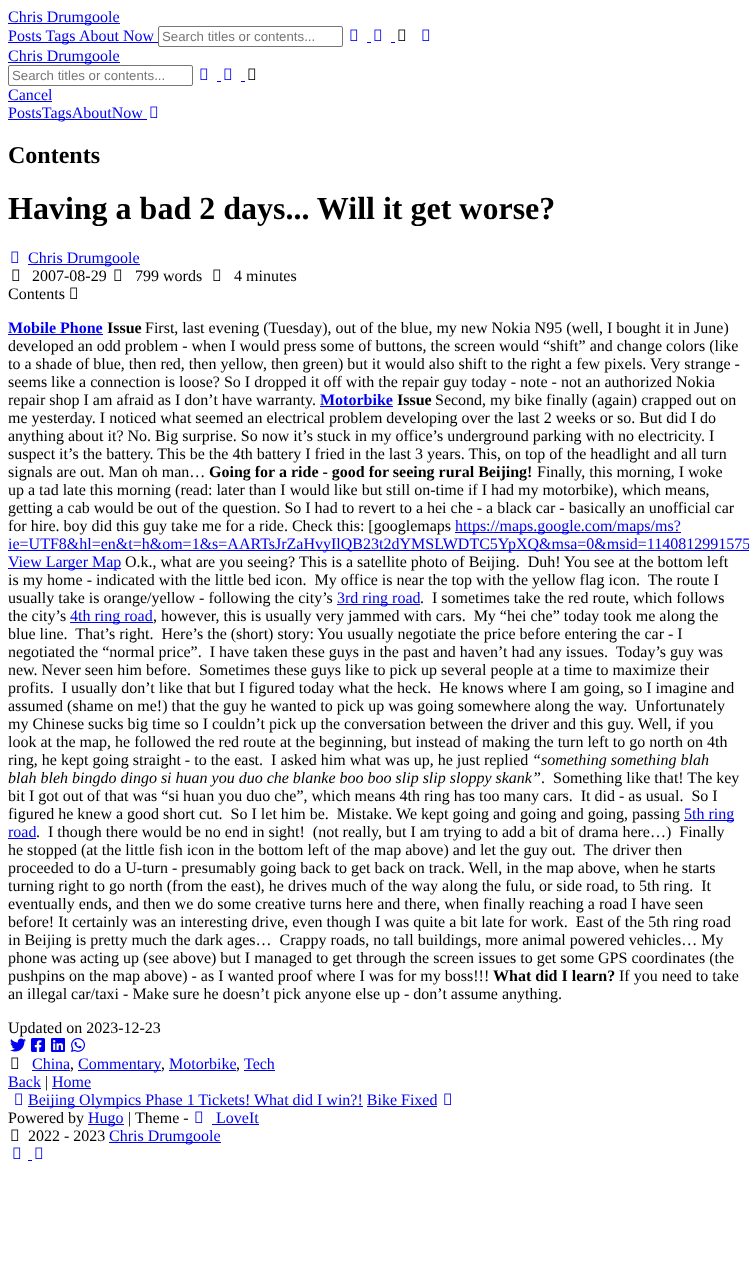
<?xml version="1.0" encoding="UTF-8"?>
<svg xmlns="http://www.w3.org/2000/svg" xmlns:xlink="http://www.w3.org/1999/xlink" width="749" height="1277">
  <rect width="100%" height="100%" fill="#ffffff" />
  <rect x="8" y="23" width="112" height="1" fill="#0000ee" />
  <rect x="8" y="42" width="150" height="1" fill="#0000ee" />
  <rect x="158.5" y="26.5" width="184" height="20" rx="1.5" fill="none" stroke="#767676" />
  <image x="350" y="29" width="8" height="12" xlink:href="image1.png" />
  <rect x="367" y="42" width="4" height="1" fill="#0000ee" />
  <image x="374" y="29" width="8" height="12" xlink:href="image1.png" />
  <rect x="391" y="42" width="4" height="1" fill="#0000ee" />
  <image x="398" y="29" width="8" height="12" xlink:href="image2.png" />
  <image x="422" y="29" width="8" height="12" xlink:href="image1.png" />
  <rect x="8" y="62" width="112" height="1" fill="#0000ee" />
  <rect x="8.5" y="65.5" width="184" height="20" rx="1.5" fill="none" stroke="#767676" />
  <image x="200" y="68" width="8" height="12" xlink:href="image1.png" />
  <rect x="217" y="81" width="4" height="1" fill="#0000ee" />
  <image x="224" y="68" width="8" height="12" xlink:href="image1.png" />
  <rect x="241" y="81" width="4" height="1" fill="#0000ee" />
  <image x="248" y="68" width="8" height="12" xlink:href="image2.png" />
  <rect x="8" y="101" width="44" height="1" fill="#0000ee" />
  <rect x="8" y="119" width="139" height="1" fill="#0000ee" />
  <image x="150" y="106" width="8" height="12" xlink:href="image1.png" />
  <image x="11" y="251" width="8" height="12" xlink:href="image1.png" />
  <rect x="28" y="264" width="112" height="1" fill="#0000ee" />
  <image x="12" y="269" width="8" height="12" xlink:href="image2.png" />
  <image x="114" y="269" width="8" height="12" xlink:href="image2.png" />
  <image x="213" y="269" width="8" height="12" xlink:href="image2.png" />
  <image x="70" y="287" width="7" height="12" xlink:href="image3.png" />
  <rect x="8" y="334" width="95" height="1" fill="#0000ee" />
  <rect x="320" y="406" width="73" height="1" fill="#0000ee" />
  <rect x="455" y="532" width="226" height="1" fill="#0000ee" />
  <rect x="8" y="550" width="741" height="1" fill="#0000ee" />
  <rect x="8" y="568" width="113" height="1" fill="#0000ee" />
  <rect x="337" y="604" width="83" height="1" fill="#0000ee" />
  <rect x="70" y="622" width="83" height="1" fill="#0000ee" />
  <rect x="684" y="820" width="50" height="1" fill="#0000ee" />
  <rect x="8" y="838" width="28" height="1" fill="#0000ee" />
  <image x="10" y="1038" width="16" height="14" xlink:href="image4.png" />
  <image x="31" y="1038" width="14" height="14" xlink:href="image5.png" />
  <image x="51" y="1038" width="14" height="14" xlink:href="image6.png" />
  <image x="71" y="1038" width="14" height="14" xlink:href="image7.png" />
  <image x="11" y="1057" width="8" height="12" xlink:href="image2.png" />
  <rect x="32" y="1070" width="38" height="1" fill="#0000ee" />
  <rect x="78" y="1070" width="83" height="1" fill="#0000ee" />
  <rect x="169" y="1070" width="67" height="1" fill="#0000ee" />
  <rect x="244" y="1070" width="31" height="1" fill="#0000ee" />
  <rect x="8" y="1088" width="33" height="1" fill="#0000ee" />
  <rect x="52" y="1088" width="39" height="1" fill="#0000ee" />
  <image x="15" y="1093" width="7" height="12" xlink:href="image8.png" />
  <rect x="28" y="1106" width="335" height="1" fill="#0000ee" />
  <image x="444" y="1093" width="7" height="12" xlink:href="image8.png" />
  <rect x="367" y="1106" width="70" height="1" fill="#0000ee" />
  <rect x="88" y="1124" width="36" height="1" fill="#0000ee" />
  <image x="195" y="1111" width="8" height="12" xlink:href="image1.png" />
  <rect x="212" y="1124" width="47" height="1" fill="#0000ee" />
  <image x="11" y="1129" width="8" height="12" xlink:href="image2.png" />
  <rect x="109" y="1142" width="112" height="1" fill="#0000ee" />
  <image x="13" y="1147" width="8" height="12" xlink:href="image1.png" />
  <rect x="28" y="1160" width="4" height="1" fill="#0000ee" />
  <image x="35" y="1147" width="8" height="12" xlink:href="image1.png" />
  <text x="8" y="22" style="font-family: Liberation Serif; font-size: 16px; fill: #0000ee">Chris Drumgoole</text>
  <text x="8" y="41" style="font-family: Liberation Serif; font-size: 16px; fill: #0000ee">Posts Tags</text>
  <text x="79" y="41" style="font-family: Liberation Serif; font-size: 16px; fill: #0000ee">About Now</text>
  <text x="162" y="41" style="font-family: Liberation Sans; font-size: 13.25px; fill: #757575">Search titles or contents...</text>
  <text x="8" y="61" style="font-family: Liberation Serif; font-size: 16px; fill: #0000ee">Chris Drumgoole</text>
  <text x="12" y="80" style="font-family: Liberation Sans; font-size: 13.25px; fill: #757575">Search titles or contents...</text>
  <text x="8" y="100" style="font-family: Liberation Serif; font-size: 16px; fill: #0000ee">Cancel</text>
  <text x="8" y="118" style="font-family: Liberation Serif; font-size: 16px; fill: #0000ee">PostsTagsAboutNow</text>
  <text x="8" y="163" style="font-family: Liberation Serif; font-size: 24px; font-weight: bold; fill: #000000">Contents</text>
  <text x="8" y="219" style="font-family: Liberation Serif; font-size: 32px; font-weight: bold; fill: #000000">Having a bad 2 days... Will it get worse?</text>
  <text x="28" y="263" style="font-family: Liberation Serif; font-size: 16px; fill: #0000ee">Chris Drumgoole</text>
  <text x="32" y="281" style="font-family: Liberation Serif; font-size: 16px; fill: #000000">2007-08-29</text>
  <text x="135" y="281" style="font-family: Liberation Serif; font-size: 16px; fill: #000000">799 words</text>
  <text x="234" y="281" style="font-family: Liberation Serif; font-size: 16px; fill: #000000">4 minutes</text>
  <text x="8" y="299" style="font-family: Liberation Serif; font-size: 16px; fill: #000000">Contents</text>
  <text x="8" y="333" style="font-family: Liberation Serif; font-size: 16px; font-weight: bold; fill: #0000ee">Mobile Phone</text>
  <text x="107" y="333" style="font-family: Liberation Serif; font-size: 16px; font-weight: bold; fill: #000000">Issue</text>
  <text x="145" y="333" style="font-family: Liberation Serif; font-size: 16px; fill: #000000">First, last evening (Tuesday), out of the blue, my new Nokia N95 (well, I bought it in June)</text>
  <text x="8" y="351" style="font-family: Liberation Serif; font-size: 16px; fill: #000000">developed an odd problem - when I would press some of buttons, the screen would “shift” and change colors (like</text>
  <text x="8" y="369" style="font-family: Liberation Serif; font-size: 16px; fill: #000000">to a shade of blue, then red, then yellow, then green) but it would also shift to the right a few pixels. Very strange -</text>
  <text x="8" y="387" style="font-family: Liberation Serif; font-size: 16px; fill: #000000">seems like a connection is loose? So I dropped it off with the repair guy today - note - not an authorized Nokia</text>
  <text x="8" y="405" style="font-family: Liberation Serif; font-size: 16px; fill: #000000">repair shop I am afraid as I don’t have warranty.</text>
  <text x="320" y="405" style="font-family: Liberation Serif; font-size: 16px; font-weight: bold; fill: #0000ee">Motorbike</text>
  <text x="397" y="405" style="font-family: Liberation Serif; font-size: 16px; font-weight: bold; fill: #000000">Issue</text>
  <text x="435" y="405" style="font-family: Liberation Serif; font-size: 16px; fill: #000000">Second, my bike finally (again) crapped out on</text>
  <text x="8" y="423" style="font-family: Liberation Serif; font-size: 16px; fill: #000000">me yesterday. I noticed what seemed an electrical problem developing over the last 2 weeks or so. But did I do</text>
  <text x="8" y="441" style="font-family: Liberation Serif; font-size: 16px; fill: #000000">anything about it? No. Big surprise. So now it’s stuck in my office’s underground parking with no electricity. I</text>
  <text x="8" y="459" style="font-family: Liberation Serif; font-size: 16px; fill: #000000">suspect it’s the battery. This be the 4th battery I fried in the last 3 years. This, on top of the headlight and all turn</text>
  <text x="8" y="477" style="font-family: Liberation Serif; font-size: 16px; fill: #000000">signals are out. Man oh man…</text>
  <text x="209" y="477" style="font-family: Liberation Serif; font-size: 16px; font-weight: bold; fill: #000000">Going for a ride - good for seeing rural Beijing!</text>
  <text x="537" y="477" style="font-family: Liberation Serif; font-size: 16px; fill: #000000">Finally, this morning, I woke</text>
  <text x="8" y="495" style="font-family: Liberation Serif; font-size: 16px; fill: #000000">up a tad late this morning (read: later than I would like but still on-time if I had my motorbike), which means,</text>
  <text x="8" y="513" style="font-family: Liberation Serif; font-size: 16px; fill: #000000">getting a cab would be out of the question. So I had to revert to a hei che - a black car - basically an unofficial car</text>
  <text x="8" y="531" style="font-family: Liberation Serif; font-size: 16px; fill: #000000">for hire. boy did this guy take me for a ride. Check this: [googlemaps</text>
  <text x="455" y="531" style="font-family: Liberation Serif; font-size: 16px; fill: #0000ee">https://maps.google.com/maps/ms?</text>
  <text x="8" y="549" style="font-family: Liberation Serif; font-size: 16px; fill: #0000ee">ie=UTF8&amp;hl=en&amp;t=h&amp;om=1&amp;s=AARTsJrZaHvyIlQB23t2dYMSLWDTC5YpXQ&amp;msa=0&amp;msid=1140812991575</text>
  <text x="8" y="567" style="font-family: Liberation Serif; font-size: 16px; fill: #0000ee">View Larger Map</text>
  <text x="125" y="567" style="font-family: Liberation Serif; font-size: 16px; fill: #000000" xml:space="preserve">O.k., what are you seeing? This is a satellite photo of Beijing.  Duh! You see at the bottom left</text>
  <text x="8" y="585" style="font-family: Liberation Serif; font-size: 16px; fill: #000000" xml:space="preserve">is my home - indicated with the little bed icon.  My office is near the top with the yellow flag icon.  The route I</text>
  <text x="8" y="603" style="font-family: Liberation Serif; font-size: 16px; fill: #000000">usually take is orange/yellow - following the city’s</text>
  <text x="337" y="603" style="font-family: Liberation Serif; font-size: 16px; fill: #0000ee">3rd ring road</text>
  <text x="420" y="603" style="font-family: Liberation Serif; font-size: 16px; fill: #000000" xml:space="preserve">.  I sometimes take the red route, which follows</text>
  <text x="8" y="621" style="font-family: Liberation Serif; font-size: 16px; fill: #000000">the city’s</text>
  <text x="70" y="621" style="font-family: Liberation Serif; font-size: 16px; fill: #0000ee">4th ring road</text>
  <text x="153" y="621" style="font-family: Liberation Serif; font-size: 16px; fill: #000000" xml:space="preserve">, however, this is usually very jammed with cars.  My “hei che” today took me along the</text>
  <text x="8" y="639" style="font-family: Liberation Serif; font-size: 16px; fill: #000000" xml:space="preserve">blue line.  That’s right.  Here’s the (short) story: You usually negotiate the price before entering the car - I</text>
  <text x="8" y="657" style="font-family: Liberation Serif; font-size: 16px; fill: #000000" xml:space="preserve">negotiated the “normal price”.  I have taken these guys in the past and haven’t had any issues.  Today’s guy was</text>
  <text x="8" y="675" style="font-family: Liberation Serif; font-size: 16px; fill: #000000" xml:space="preserve">new. Never seen him before.  Sometimes these guys like to pick up several people at a time to maximize their</text>
  <text x="8" y="693" style="font-family: Liberation Serif; font-size: 16px; fill: #000000" xml:space="preserve">profits.  I usually don’t like that but I figured today what the heck.  He knows where I am going, so I imagine and</text>
  <text x="8" y="711" style="font-family: Liberation Serif; font-size: 16px; fill: #000000" xml:space="preserve">assumed (shame on me!) that the guy he wanted to pick up was going somewhere along the way.  Unfortunately</text>
  <text x="8" y="729" style="font-family: Liberation Serif; font-size: 16px; fill: #000000">my Chinese sucks big time so I couldn’t pick up the conversation between the driver and this guy. Well, if you</text>
  <text x="8" y="747" style="font-family: Liberation Serif; font-size: 16px; fill: #000000">look at the map, he followed the red route at the beginning, but instead of making the turn left to go north on 4th</text>
  <text x="8" y="765" style="font-family: Liberation Serif; font-size: 16px; fill: #000000" xml:space="preserve">ring, he kept going straight - to the east.  I asked him what was up, he just replied</text>
  <text x="532" y="765" style="font-family: Liberation Serif; font-size: 16px; font-style: italic; fill: #000000">“something something blah</text>
  <text x="8" y="783" style="font-family: Liberation Serif; font-size: 16px; font-style: italic; fill: #000000">blah bleh bingdo dingo si huan you duo che blanke boo boo slip slip sloppy skank”</text>
  <text x="541" y="783" style="font-family: Liberation Serif; font-size: 16px; fill: #000000" xml:space="preserve">.  Something like that! The key</text>
  <text x="8" y="801" style="font-family: Liberation Serif; font-size: 16px; fill: #000000" xml:space="preserve">bit I got out of that was “si huan you duo che”, which means 4th ring has too many cars.  It did - as usual.  So I</text>
  <text x="8" y="819" style="font-family: Liberation Serif; font-size: 16px; fill: #000000" xml:space="preserve">figured he knew a good short cut.  So I let him be.  Mistake. We kept going and going and going, passing</text>
  <text x="684" y="819" style="font-family: Liberation Serif; font-size: 16px; fill: #0000ee">5th ring</text>
  <text x="8" y="837" style="font-family: Liberation Serif; font-size: 16px; fill: #0000ee">road</text>
  <text x="36" y="837" style="font-family: Liberation Serif; font-size: 16px; fill: #000000" xml:space="preserve">.  I though there would be no end in sight!  (not really, but I am trying to add a bit of drama here…)  Finally</text>
  <text x="8" y="855" style="font-family: Liberation Serif; font-size: 16px; fill: #000000" xml:space="preserve">he stopped (at the little fish icon in the bottom left of the map above) and let the guy out.  The driver then</text>
  <text x="8" y="873" style="font-family: Liberation Serif; font-size: 16px; fill: #000000">proceeded to do a U-turn - presumably going back to get back on track. Well, in the map above, when he starts</text>
  <text x="8" y="891" style="font-family: Liberation Serif; font-size: 16px; fill: #000000" xml:space="preserve">turning right to go north (from the east), he drives much of the way along the fulu, or side road, to 5th ring.  It</text>
  <text x="8" y="909" style="font-family: Liberation Serif; font-size: 16px; fill: #000000">eventually ends, and then we do some creative turns here and there, when finally reaching a road I have seen</text>
  <text x="8" y="927" style="font-family: Liberation Serif; font-size: 16px; fill: #000000" xml:space="preserve">before! It certainly was an interesting drive, even though I was quite a bit late for work.  East of the 5th ring road</text>
  <text x="8" y="945" style="font-family: Liberation Serif; font-size: 16px; fill: #000000" xml:space="preserve">in Beijing is pretty much the dark ages…  Crappy roads, no tall buildings, more animal powered vehicles… My</text>
  <text x="8" y="963" style="font-family: Liberation Serif; font-size: 16px; fill: #000000">phone was acting up (see above) but I managed to get through the screen issues to get some GPS coordinates (the</text>
  <text x="8" y="981" style="font-family: Liberation Serif; font-size: 16px; fill: #000000">pushpins on the map above) - as I wanted proof where I was for my boss!!!</text>
  <text x="493" y="981" style="font-family: Liberation Serif; font-size: 16px; font-weight: bold; fill: #000000">What did I learn?</text>
  <text x="619" y="981" style="font-family: Liberation Serif; font-size: 16px; fill: #000000">If you need to take</text>
  <text x="8" y="999" style="font-family: Liberation Serif; font-size: 16px; fill: #000000">an illegal car/taxi - Make sure he doesn’t pick anyone else up - don’t assume anything.</text>
  <text x="8" y="1033" style="font-family: Liberation Serif; font-size: 16px; fill: #000000">Updated on 2023-12-23</text>
  <text x="32" y="1069" style="font-family: Liberation Serif; font-size: 16px; fill: #0000ee">China</text>
  <text x="70" y="1069" style="font-family: Liberation Serif; font-size: 16px; fill: #000000">,</text>
  <text x="78" y="1069" style="font-family: Liberation Serif; font-size: 16px; fill: #0000ee">Commentary</text>
  <text x="161" y="1069" style="font-family: Liberation Serif; font-size: 16px; fill: #000000">,</text>
  <text x="169" y="1069" style="font-family: Liberation Serif; font-size: 16px; fill: #0000ee">Motorbike</text>
  <text x="236" y="1069" style="font-family: Liberation Serif; font-size: 16px; fill: #000000">,</text>
  <text x="244" y="1069" style="font-family: Liberation Serif; font-size: 16px; fill: #0000ee">Tech</text>
  <text x="8" y="1087" style="font-family: Liberation Serif; font-size: 16px; fill: #0000ee">Back</text>
  <text x="45" y="1087" style="font-family: Liberation Serif; font-size: 16px; fill: #000000">|</text>
  <text x="52" y="1087" style="font-family: Liberation Serif; font-size: 16px; fill: #0000ee">Home</text>
  <text x="28" y="1105" style="font-family: Liberation Serif; font-size: 16px; fill: #0000ee">Beijing Olympics Phase 1 Tickets! What did I win?! Bike Fixed</text>
  <text x="8" y="1123" style="font-family: Liberation Serif; font-size: 16px; fill: #000000">Powered by</text>
  <text x="88" y="1123" style="font-family: Liberation Serif; font-size: 16px; fill: #0000ee">Hugo</text>
  <text x="128" y="1123" style="font-family: Liberation Serif; font-size: 16px; fill: #000000">| Theme -</text>
  <text x="216" y="1123" style="font-family: Liberation Serif; font-size: 16px; fill: #0000ee">LoveIt</text>
  <text x="28" y="1141" style="font-family: Liberation Serif; font-size: 16px; fill: #000000">2022 - 2023</text>
  <text x="109" y="1141" style="font-family: Liberation Serif; font-size: 16px; fill: #0000ee">Chris Drumgoole</text>
</svg>
